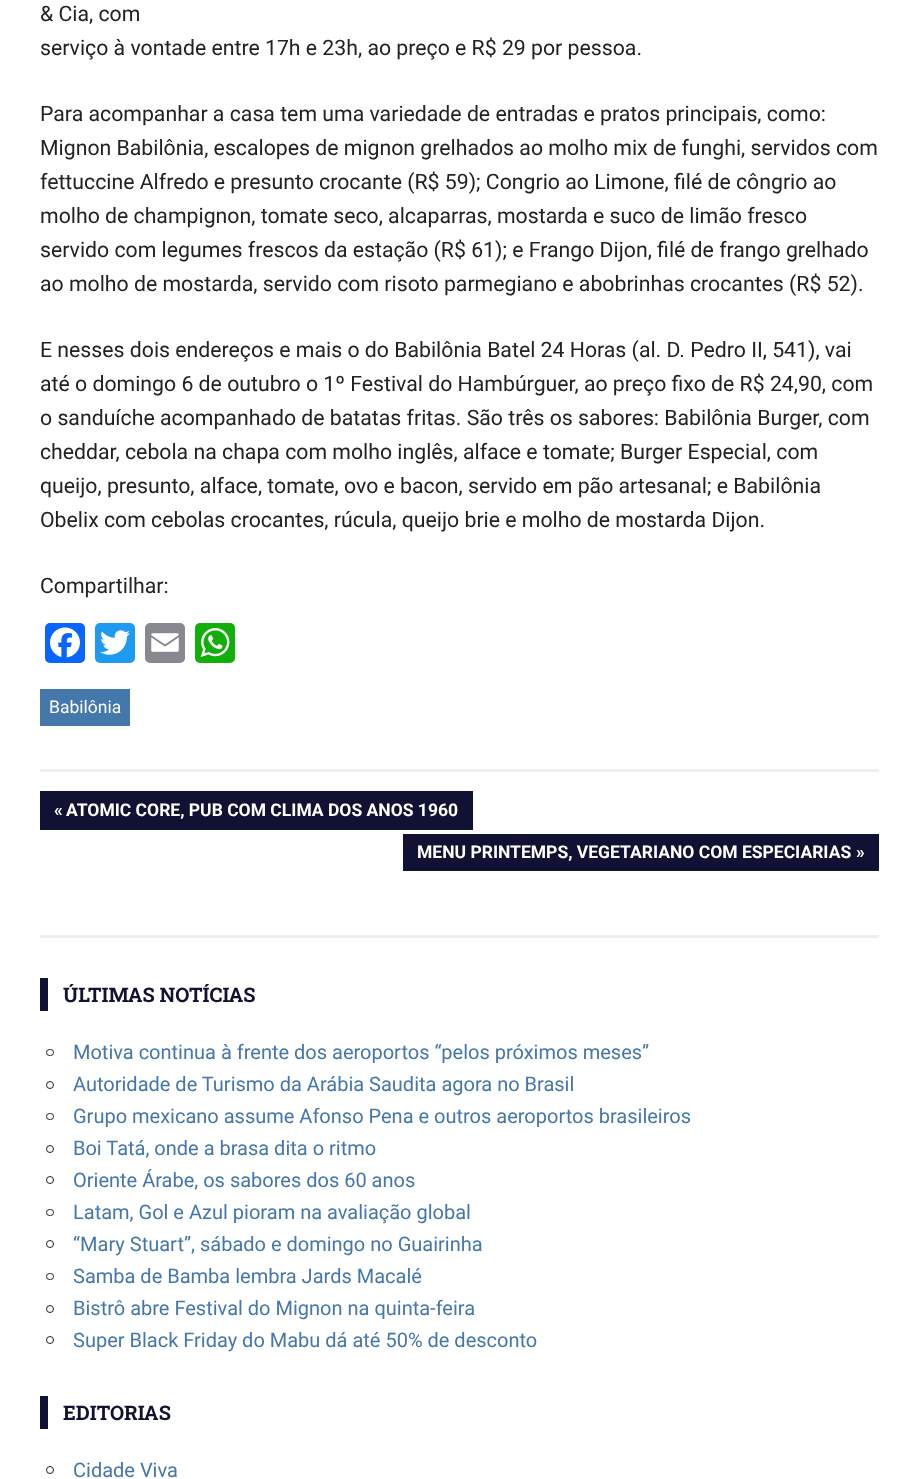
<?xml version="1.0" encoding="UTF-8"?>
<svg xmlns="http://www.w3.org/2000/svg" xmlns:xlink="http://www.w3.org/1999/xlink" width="918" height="1479">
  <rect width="100%" height="100%" fill="#ffffff" />
  <rect x="45" y="623" width="40" height="40" rx="5" fill="#0866ff" />
  <image x="50" y="627" width="30" height="31" xlink:href="image1.png" />
  <rect x="95" y="623" width="40" height="40" rx="5" fill="#1d9bf0" />
  <image x="100" y="630" width="30" height="25" xlink:href="image2.png" />
  <rect x="145" y="623" width="40" height="40" rx="5" fill="#888990" />
  <image x="151" y="633" width="28" height="19" xlink:href="image3.png" />
  <rect x="195" y="623" width="40" height="40" rx="5" fill="#12af0a" />
  <image x="200" y="628" width="30" height="29" xlink:href="image4.png" />
  <rect x="40" y="689" width="90" height="37" fill="#4477aa" />
  <rect x="40" y="769" width="839" height="3" fill="#eeeeee" />
  <rect x="40" y="791" width="433" height="39" fill="#111133" />
  <rect x="403" y="834" width="476" height="37" fill="#111133" />
  <rect x="40" y="935" width="839" height="3" fill="#eeeeee" />
  <rect x="40" y="978" width="8" height="33" fill="#111133" />
  <rect x="46.5" y="1049.5" width="7" height="6" rx="3" fill="none" stroke="#222222" />
  <circle cx="50" cy="1085" r="3.5" fill="none" stroke="#222222" />
  <rect x="46.5" y="1113.5" width="7" height="6" rx="3" fill="none" stroke="#222222" />
  <circle cx="50" cy="1149" r="3.5" fill="none" stroke="#222222" />
  <circle cx="50" cy="1180" r="3.5" fill="none" stroke="#222222" />
  <rect x="46.5" y="1209.5" width="7" height="6" rx="3" fill="none" stroke="#222222" />
  <circle cx="50" cy="1244" r="3.5" fill="none" stroke="#222222" />
  <rect x="46.5" y="1273.5" width="7" height="6" rx="3" fill="none" stroke="#222222" />
  <circle cx="50" cy="1309" r="3.5" fill="none" stroke="#222222" />
  <circle cx="50" cy="1340" r="3.5" fill="none" stroke="#222222" />
  <rect x="40" y="1396" width="8" height="33" fill="#111133" />
  <circle cx="50" cy="1470" r="3.5" fill="none" stroke="#222222" />
  <text x="40" y="21" style="font-family: Roboto; font-size: 21.25px; fill: #222222">&amp; Cia, com</text>
  <text x="40" y="55" style="font-family: Roboto; font-size: 21.25px; fill: #222222">serviço à vontade entre 17h e 23h, ao preço e R$ 29 por pessoa.</text>
  <text x="40" y="121" style="font-family: Roboto; font-size: 21.25px; fill: #222222">Para acompanhar a casa tem uma variedade de entradas e pratos principais, como:</text>
  <text x="40" y="155" style="font-family: Roboto; font-size: 21.25px; fill: #222222">Mignon Babilônia, escalopes de mignon grelhados ao molho mix de funghi, servidos com</text>
  <text x="40" y="189" style="font-family: Roboto; font-size: 21.25px; fill: #222222">fettuccine Alfredo e presunto crocante (R$ 59); Congrio ao Limone, filé de côngrio ao</text>
  <text x="40" y="223" style="font-family: Roboto; font-size: 21.25px; fill: #222222">molho de champignon, tomate seco, alcaparras, mostarda e suco de limão fresco</text>
  <text x="40" y="257" style="font-family: Roboto; font-size: 21.25px; fill: #222222">servido com legumes frescos da estação (R$ 61); e Frango Dijon, filé de frango grelhado</text>
  <text x="40" y="291" style="font-family: Roboto; font-size: 21.25px; fill: #222222">ao molho de mostarda, servido com risoto parmegiano e abobrinhas crocantes (R$ 52).</text>
  <text x="40" y="357" style="font-family: Roboto; font-size: 21.25px; fill: #222222">E nesses dois endereços e mais o do Babilônia Batel 24 Horas (al. D. Pedro II, 541), vai</text>
  <text x="40" y="391" style="font-family: Roboto; font-size: 21.25px; fill: #222222">até o domingo 6 de outubro o 1º Festival do Hambúrguer, ao preço fixo de R$ 24,90, com</text>
  <text x="40" y="425" style="font-family: Roboto; font-size: 21.25px; fill: #222222">o sanduíche acompanhado de batatas fritas. São três os sabores: Babilônia Burger, com</text>
  <text x="40" y="459" style="font-family: Roboto; font-size: 21.25px; fill: #222222">cheddar, cebola na chapa com molho inglês, alface e tomate; Burger Especial, com</text>
  <text x="40" y="493" style="font-family: Roboto; font-size: 21.25px; fill: #222222">queijo, presunto, alface, tomate, ovo e bacon, servido em pão artesanal; e Babilônia</text>
  <text x="40" y="527" style="font-family: Roboto; font-size: 21.25px; fill: #222222">Obelix com cebolas crocantes, rúcula, queijo brie e molho de mostarda Dijon.</text>
  <text x="40" y="593" style="font-family: Roboto; font-size: 21.25px; fill: #222222">Compartilhar:</text>
  <text x="49" y="713" style="font-family: Roboto; font-size: 17.5px; fill: #ffffff">Babilônia</text>
  <text x="54" y="816" style="font-family: Roboto; font-size: 17.5px; font-weight: bold; fill: #ffffff">«</text>
  <text x="66" y="816" style="font-family: Roboto; font-size: 17.5px; font-weight: bold; fill: #ffffff">ATOMIC CORE, PUB COM CLIMA DOS ANOS 1960</text>
  <text x="417" y="858" style="font-family: Roboto; font-size: 17.5px; font-weight: bold; fill: #ffffff">MENU PRINTEMPS, VEGETARIANO COM ESPECIARIAS</text>
  <text x="856" y="858" style="font-family: Roboto; font-size: 17.5px; font-weight: bold; fill: #ffffff">»</text>
  <text x="63" y="1002" style="font-family: Roboto Slab; font-size: 20px; font-weight: bold; fill: #111133">ÚLTIMAS NOTÍCIAS</text>
  <text x="73" y="1059" style="font-family: Roboto; font-size: 20px; fill: #4477aa">Motiva continua à frente dos aeroportos “pelos próximos meses”</text>
  <text x="73" y="1091" style="font-family: Roboto; font-size: 20px; fill: #4477aa">Autoridade de Turismo da Arábia Saudita agora no Brasil</text>
  <text x="73" y="1123" style="font-family: Roboto; font-size: 20px; fill: #4477aa">Grupo mexicano assume Afonso Pena e outros aeroportos brasileiros</text>
  <text x="73" y="1155" style="font-family: Roboto; font-size: 20px; fill: #4477aa">Boi Tatá, onde a brasa dita o ritmo</text>
  <text x="73" y="1187" style="font-family: Roboto; font-size: 20px; fill: #4477aa">Oriente Árabe, os sabores dos 60 anos</text>
  <text x="73" y="1219" style="font-family: Roboto; font-size: 20px; fill: #4477aa">Latam, Gol e Azul pioram na avaliação global</text>
  <text x="73" y="1251" style="font-family: Roboto; font-size: 20px; fill: #4477aa">“Mary Stuart”, sábado e domingo no Guairinha</text>
  <text x="73" y="1283" style="font-family: Roboto; font-size: 20px; fill: #4477aa">Samba de Bamba lembra Jards Macalé</text>
  <text x="73" y="1315" style="font-family: Roboto; font-size: 20px; fill: #4477aa">Bistrô abre Festival do Mignon na quinta-feira</text>
  <text x="73" y="1347" style="font-family: Roboto; font-size: 20px; fill: #4477aa">Super Black Friday do Mabu dá até 50% de desconto</text>
  <text x="63" y="1420" style="font-family: Roboto Slab; font-size: 20px; font-weight: bold; fill: #111133">EDITORIAS</text>
  <text x="73" y="1477" style="font-family: Roboto; font-size: 20px; fill: #4477aa">Cidade Viva</text>
</svg>
